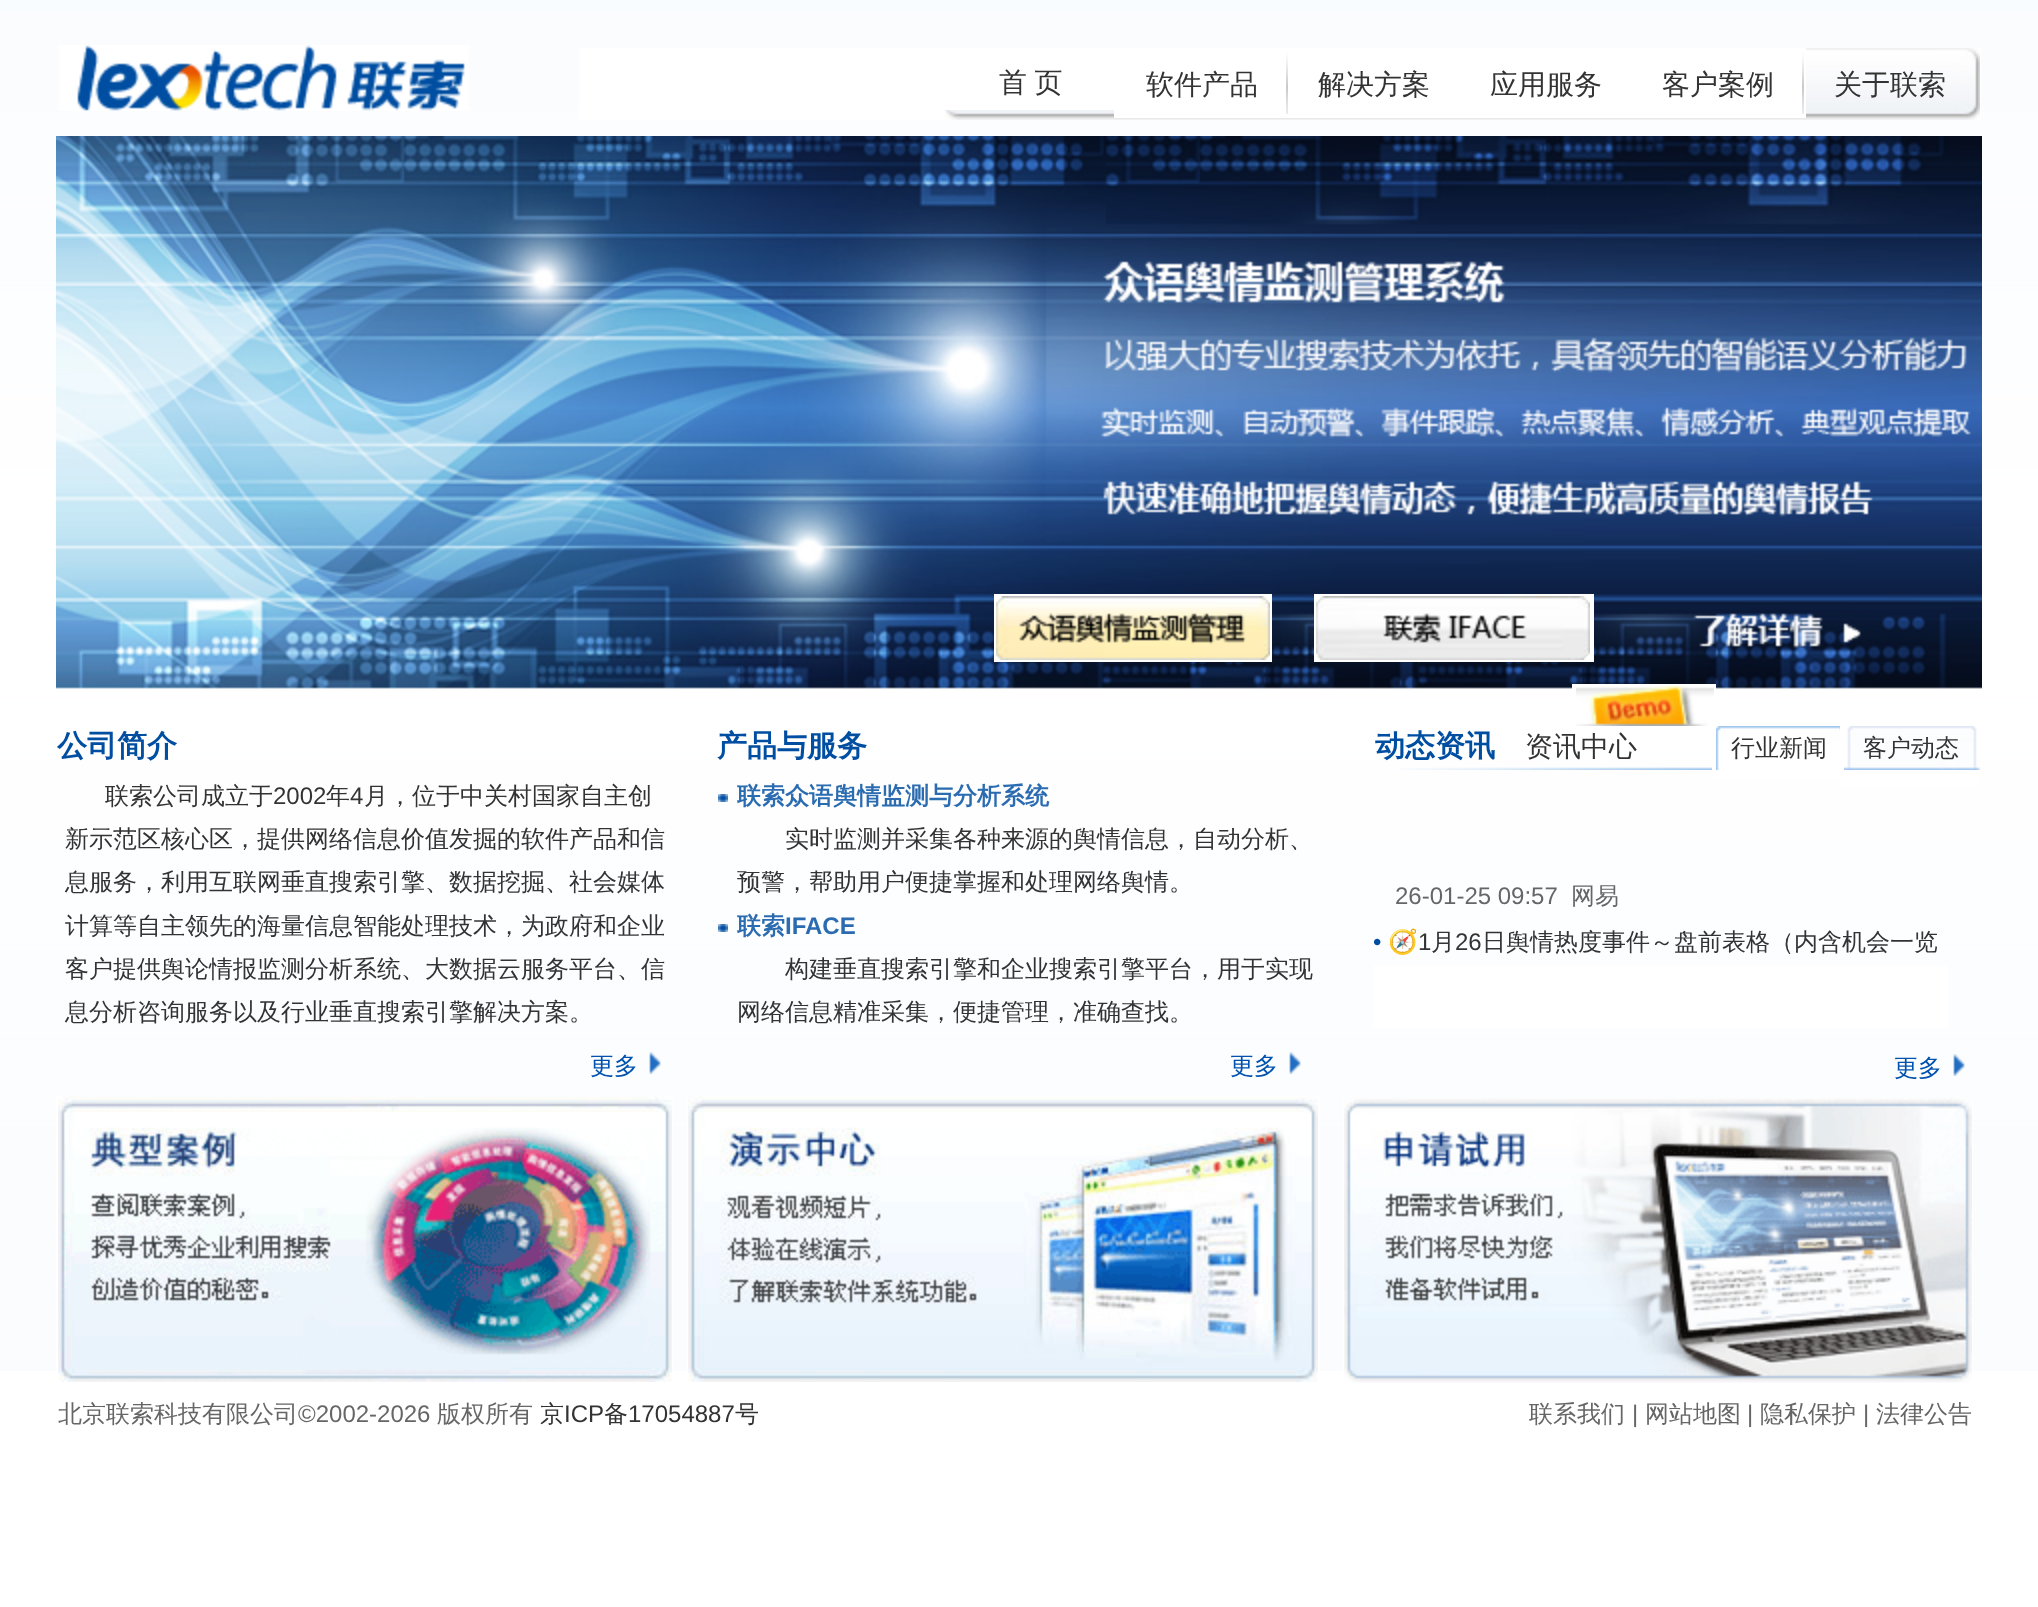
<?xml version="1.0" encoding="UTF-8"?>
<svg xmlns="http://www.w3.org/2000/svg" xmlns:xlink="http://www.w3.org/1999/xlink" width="2038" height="1607">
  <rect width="100%" height="100%" fill="#ffffff" />
  <image x="0" y="0" width="2038" height="1371" xlink:href="image1.png" />
  <image x="59" y="45" width="410" height="66" xlink:href="image2.png" />
  <image x="579" y="48" width="1402" height="72" xlink:href="image3.png" />
  <image x="944" y="48" width="170" height="62" xlink:href="image4.png" />
  <image x="1114" y="48" width="174" height="70" xlink:href="image5.png" />
  <image x="1288" y="48" width="170" height="70" xlink:href="image6.png" />
  <image x="1458" y="48" width="172" height="70" xlink:href="image7.png" />
  <image x="1630" y="48" width="176" height="70" xlink:href="image8.png" />
  <image x="56" y="136" width="1926" height="553" xlink:href="image9.png" />
  <image x="994" y="594" width="278" height="68" xlink:href="image10.png" />
  <image x="1314" y="594" width="280" height="68" xlink:href="image11.png" />
  <image x="649" y="1052" width="12" height="22" xlink:href="image12.png" />
  <image x="718" y="794" width="10" height="8" xlink:href="image13.png" />
  <image x="718" y="924" width="10" height="8" xlink:href="image13.png" />
  <image x="1289" y="1052" width="12" height="22" xlink:href="image12.png" />
  <image x="1572" y="684" width="144" height="42" xlink:href="image14.png" />
  <image x="1399" y="767" width="313" height="3" xlink:href="image15.png" />
  <image x="1712" y="726" width="128" height="52" xlink:href="image16.png" />
  <image x="1840" y="726" width="140" height="60" xlink:href="image17.png" />
  <rect x="1373" y="966" width="575" height="62" fill="#ffffff" />
  <image x="1953" y="1054" width="12" height="22" xlink:href="image12.png" />
  <image x="56" y="1096" width="617" height="286" xlink:href="image18.png" />
  <image x="687" y="1096" width="633" height="286" xlink:href="image19.png" />
  <image x="1343" y="1098" width="630" height="285" xlink:href="image20.png" />
  <text x="999" y="92" word-spacing="-1" style="font-family: WenQuanYi Zen Hei; font-size: 28px; font-weight: 500; fill: #333333">首 页</text>
  <text x="1146" y="94" style="font-family: WenQuanYi Zen Hei; font-size: 28px; font-weight: 500; fill: #333333">软件产品</text>
  <text x="1318" y="94" style="font-family: WenQuanYi Zen Hei; font-size: 28px; font-weight: 500; fill: #333333">解决方案</text>
  <text x="1490" y="94" style="font-family: WenQuanYi Zen Hei; font-size: 28px; font-weight: 500; fill: #333333">应用服务</text>
  <text x="1662" y="94" style="font-family: WenQuanYi Zen Hei; font-size: 28px; font-weight: 500; fill: #333333">客户案例</text>
  <text x="1834" y="94" style="font-family: WenQuanYi Zen Hei; font-size: 28px; font-weight: 500; fill: #333333">关于联索</text>
  <text x="57" y="756" style="font-family: WenQuanYi Zen Hei; font-size: 30px; font-weight: bold; fill: #004ea1">公司简介</text>
  <text x="105" y="804" style="font-family: WenQuanYi Zen Hei; font-size: 24px; font-weight: 500; fill: #333333">联索公司成立于</text>
  <text x="273" y="804" style="font-family: Liberation Sans; font-size: 24px; fill: #333333">2002</text>
  <text x="326" y="804" style="font-family: WenQuanYi Zen Hei; font-size: 24px; font-weight: 500; fill: #333333">年</text>
  <text x="350" y="804" style="font-family: Liberation Sans; font-size: 24px; fill: #333333">4</text>
  <text x="364" y="804" style="font-family: WenQuanYi Zen Hei; font-size: 24px; font-weight: 500; fill: #333333">月，位于中关村国家自主创</text>
  <text x="65" y="847" style="font-family: WenQuanYi Zen Hei; font-size: 24px; font-weight: 500; fill: #333333">新示范区核心区，提供网络信息价值发掘的软件产品和信</text>
  <text x="65" y="890" style="font-family: WenQuanYi Zen Hei; font-size: 24px; font-weight: 500; fill: #333333">息服务，利用互联网垂直搜索引擎、数据挖掘、社会媒体</text>
  <text x="65" y="934" style="font-family: WenQuanYi Zen Hei; font-size: 24px; font-weight: 500; fill: #333333">计算等自主领先的海量信息智能处理技术，为政府和企业</text>
  <text x="65" y="977" style="font-family: WenQuanYi Zen Hei; font-size: 24px; font-weight: 500; fill: #333333">客户提供舆论情报监测分析系统、大数据云服务平台、信</text>
  <text x="65" y="1020" style="font-family: WenQuanYi Zen Hei; font-size: 24px; font-weight: 500; fill: #333333">息分析咨询服务以及行业垂直搜索引擎解决方案。</text>
  <text x="590" y="1074" style="font-family: WenQuanYi Zen Hei; font-size: 24px; font-weight: 500; fill: #0052ae">更多</text>
  <text x="717" y="756" style="font-family: WenQuanYi Zen Hei; font-size: 30px; font-weight: bold; fill: #004ea1">产品与服务</text>
  <text x="737" y="804" style="font-family: WenQuanYi Zen Hei; font-size: 24px; font-weight: bold; fill: #2b6cb1">联索众语舆情监测与分析系统</text>
  <text x="785" y="847" style="font-family: WenQuanYi Zen Hei; font-size: 24px; font-weight: 500; fill: #333333">实时监测并采集各种来源的舆情信息，自动分析、</text>
  <text x="737" y="890" style="font-family: WenQuanYi Zen Hei; font-size: 24px; font-weight: 500; fill: #333333">预警，帮助用户便捷掌握和处理网络舆情。</text>
  <text x="737" y="934" style="font-family: WenQuanYi Zen Hei; font-size: 24px; font-weight: bold; fill: #2b6cb1">联索</text>
  <text x="785" y="934" style="font-family: Liberation Sans; font-size: 24px; font-weight: bold; fill: #2b6cb1">IFACE</text>
  <text x="785" y="977" style="font-family: WenQuanYi Zen Hei; font-size: 24px; font-weight: 500; fill: #333333">构建垂直搜索引擎和企业搜索引擎平台，用于实现</text>
  <text x="737" y="1020" style="font-family: WenQuanYi Zen Hei; font-size: 24px; font-weight: 500; fill: #333333">网络信息精准采集，便捷管理，准确查找。</text>
  <text x="1230" y="1074" style="font-family: WenQuanYi Zen Hei; font-size: 24px; font-weight: 500; fill: #0052ae">更多</text>
  <text x="1375" y="756" style="font-family: WenQuanYi Zen Hei; font-size: 30px; font-weight: bold; fill: #004ea1">动态资讯</text>
  <text x="1525" y="756" style="font-family: WenQuanYi Zen Hei; font-size: 28px; font-weight: 500; fill: #333333">资讯中心</text>
  <text x="1731" y="756" style="font-family: WenQuanYi Zen Hei; font-size: 24px; font-weight: 500; fill: #333333">行业新闻</text>
  <text x="1863" y="756" style="font-family: WenQuanYi Zen Hei; font-size: 24px; font-weight: 500; fill: #333333">客户动态</text>
  <text x="1395" y="904" style="font-family: Liberation Sans; font-size: 24px; fill: #666666">26-01-25 09:57</text>
  <text x="1571" y="904" style="font-family: WenQuanYi Zen Hei; font-size: 24px; font-weight: 500; fill: #666666">网易</text>
  <text x="1373" y="950" style="font-family: Liberation Sans; font-size: 24px; fill: #004ea1">•</text>
  <text x="1388" y="950" style="font-family: Noto Color Emoji; font-size: 24px; fill: #333333">🧭</text>
  <text x="1418" y="950" style="font-family: Liberation Sans; font-size: 24px; fill: #333333">1</text>
  <text x="1431" y="950" style="font-family: WenQuanYi Zen Hei; font-size: 24px; font-weight: 500; fill: #333333">月</text>
  <text x="1455" y="950" style="font-family: Liberation Sans; font-size: 24px; fill: #333333">26</text>
  <text x="1482" y="950" style="font-family: WenQuanYi Zen Hei; font-size: 24px; font-weight: 500; fill: #333333">日舆情热度事件～盘前表格（内含机会一览</text>
  <text x="1894" y="1076" style="font-family: WenQuanYi Zen Hei; font-size: 24px; font-weight: 500; fill: #0052ae">更多</text>
  <text x="58" y="1422" style="font-family: WenQuanYi Zen Hei; font-size: 24px; font-weight: 500; fill: #666666">北京联索科技有限公司</text>
  <text x="298" y="1422" style="font-family: Liberation Sans; font-size: 24px; fill: #666666">©2002-2026</text>
  <text x="437" y="1422" style="font-family: WenQuanYi Zen Hei; font-size: 24px; font-weight: 500; fill: #666666">版权所有</text>
  <text x="540" y="1422" style="font-family: WenQuanYi Zen Hei; font-size: 24px; font-weight: 500; fill: #333333">京</text>
  <text x="564" y="1422" style="font-family: Liberation Sans; font-size: 24px; fill: #333333">ICP</text>
  <text x="604" y="1422" style="font-family: WenQuanYi Zen Hei; font-size: 24px; font-weight: 500; fill: #333333">备</text>
  <text x="628" y="1422" style="font-family: Liberation Sans; font-size: 24px; fill: #333333">17054887</text>
  <text x="735" y="1422" style="font-family: WenQuanYi Zen Hei; font-size: 24px; font-weight: 500; fill: #333333">号</text>
  <text x="1529" y="1422" style="font-family: WenQuanYi Zen Hei; font-size: 24px; font-weight: 500; fill: #666666">联系我们</text>
  <text x="1632" y="1422" style="font-family: Liberation Sans; font-size: 24px; fill: #666666">|</text>
  <text x="1645" y="1422" style="font-family: WenQuanYi Zen Hei; font-size: 24px; font-weight: 500; fill: #666666">网站地图</text>
  <text x="1747" y="1422" style="font-family: Liberation Sans; font-size: 24px; fill: #666666">|</text>
  <text x="1760" y="1422" style="font-family: WenQuanYi Zen Hei; font-size: 24px; font-weight: 500; fill: #666666">隐私保护</text>
  <text x="1863" y="1422" style="font-family: Liberation Sans; font-size: 24px; fill: #666666">|</text>
  <text x="1876" y="1422" style="font-family: WenQuanYi Zen Hei; font-size: 24px; font-weight: 500; fill: #666666">法律公告</text>
</svg>
